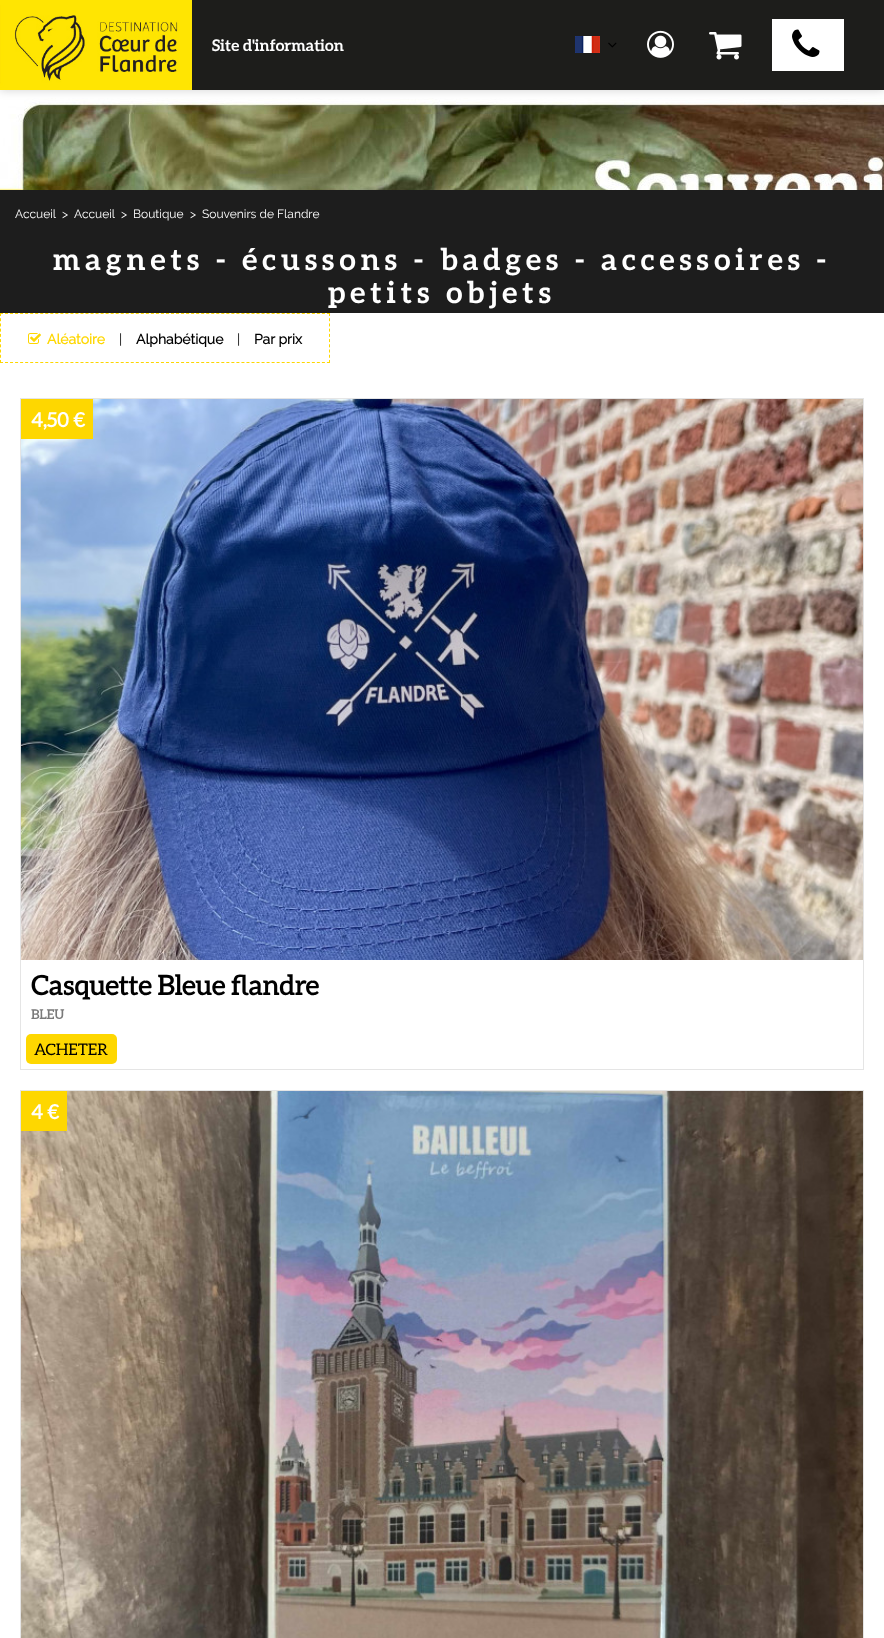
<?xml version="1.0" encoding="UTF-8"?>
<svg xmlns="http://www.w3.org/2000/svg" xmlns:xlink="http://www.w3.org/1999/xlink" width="884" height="1638">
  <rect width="100%" height="100%" fill="#ffffff" />
  <image x="0" y="98" width="884" height="92" xlink:href="image7.png" />
  <rect y="1" width="884" height="90" fill="#000000" fill-opacity="0.15" filter="blur(4px)" />
  <rect x="192" width="692" height="90" fill="#1d1d1b" />
  <image x="0" y="0" width="192" height="90" xlink:href="image1.png" />
  <image x="575" y="36" width="25" height="17" xlink:href="image2.png" />
  <image x="608" y="42" width="9" height="6" xlink:href="image3.png" />
  <image x="647" y="30" width="27" height="28" xlink:href="image4.png" />
  <image x="709" y="32" width="33" height="28" xlink:href="image5.png" />
  <rect x="772" y="19" width="72" height="52" fill="#ffffff" />
  <image x="792" y="29" width="28" height="28" xlink:href="image6.png" />
  <rect y="190" width="884" height="123" fill="#1d1d1d" />
  <path d="M 0 313.5 h 330" fill="none" stroke="#fdd700" stroke-dasharray="3 2.03" />
  <path d="M 329.5 313 v 50" fill="none" stroke="#fdd700" stroke-dasharray="3 2.22" />
  <path d="M 0 362.5 h 330" fill="none" stroke="#fdd700" stroke-dasharray="3 2.03" />
  <path d="M 0.5 313 v 50" fill="none" stroke="#fdd700" stroke-dasharray="3 2.22" />
  <image x="28" y="333" width="13" height="11" xlink:href="image8.png" />
  <rect x="20.5" y="398.5" width="843" height="671" fill="none" stroke="#e5e5e5" />
  <image x="21" y="399" width="842" height="561" xlink:href="image9.png" />
  <rect x="21" y="399" width="72" height="40" fill="#fed700" />
  <rect x="26" y="1034" width="91" height="30" rx="5" fill="#fed700" />
  <rect x="20.5" y="1090.5" width="843" height="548" fill="none" stroke="#e5e5e5" />
  <image x="21" y="1091" width="842" height="547" xlink:href="image10.png" />
  <rect x="21" y="1091" width="46" height="40" fill="#fed700" />
  <text x="212" y="51" style="font-family: Aleo; font-size: 16px; font-weight: bold; fill: #ffffff">Site d'information</text>
  <text x="15" y="218" style="font-family: Raleway; font-size: 12px; font-weight: 100; fill: #ffffff">Accueil</text>
  <text x="62" y="218" style="font-family: Raleway; font-size: 12px; font-weight: 100; fill: #ffffff">&gt;</text>
  <text x="74" y="218" style="font-family: Raleway; font-size: 12px; font-weight: 100; fill: #ffffff">Accueil</text>
  <text x="121" y="218" style="font-family: Raleway; font-size: 12px; font-weight: 100; fill: #ffffff">&gt;</text>
  <text x="133" y="218" style="font-family: Raleway; font-size: 12px; font-weight: 100; fill: #ffffff">Boutique</text>
  <text x="190" y="218" style="font-family: Raleway; font-size: 12px; font-weight: 100; fill: #ffffff">&gt;</text>
  <text x="202" y="218" style="font-family: Raleway; font-size: 12px; font-weight: 100; fill: #ffffff">Souvenirs de Flandre</text>
  <text x="53" y="270" style="font-family: Aleo; font-size: 30px; font-weight: bold; letter-spacing: 5px; fill: #ffffff">magnets - écussons - badges - accessoires -</text>
  <text x="328" y="303" style="font-family: Aleo; font-size: 30px; font-weight: bold; letter-spacing: 5px; fill: #ffffff">petits objets</text>
  <text x="47" y="344" style="font-family: Raleway; font-size: 14px; font-weight: bold; fill: #fed700">Aléatoire</text>
  <text x="119" y="344" style="font-family: Raleway; font-size: 14px; font-weight: 100; fill: #000000">|</text>
  <text x="136" y="344" style="font-family: Raleway; font-size: 14px; font-weight: bold; fill: #000000">Alphabétique</text>
  <text x="237" y="344" style="font-family: Raleway; font-size: 14px; font-weight: 100; fill: #000000">|</text>
  <text x="254" y="344" style="font-family: Raleway; font-size: 14px; font-weight: bold; fill: #000000">Par prix</text>
  <text x="31" y="427" style="font-family: 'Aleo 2'; font-size: 20px; font-weight: bold; fill: #ffffff">4,50 €</text>
  <text x="31" y="995" style="font-family: 'Aleo 2'; font-size: 27px; font-weight: bold; fill: #000000">Casquette Bleue flandre</text>
  <text x="31" y="1019" style="font-family: 'Aleo 2'; font-size: 13px; font-weight: bold; fill: #7a7a7a">BLEU</text>
  <text x="34" y="1055" style="font-family: Aleo; font-size: 16px; fill: #000000">ACHETER</text>
  <text x="31" y="1119" style="font-family: 'Aleo 2'; font-size: 20px; font-weight: bold; fill: #ffffff">4 €</text>
</svg>
